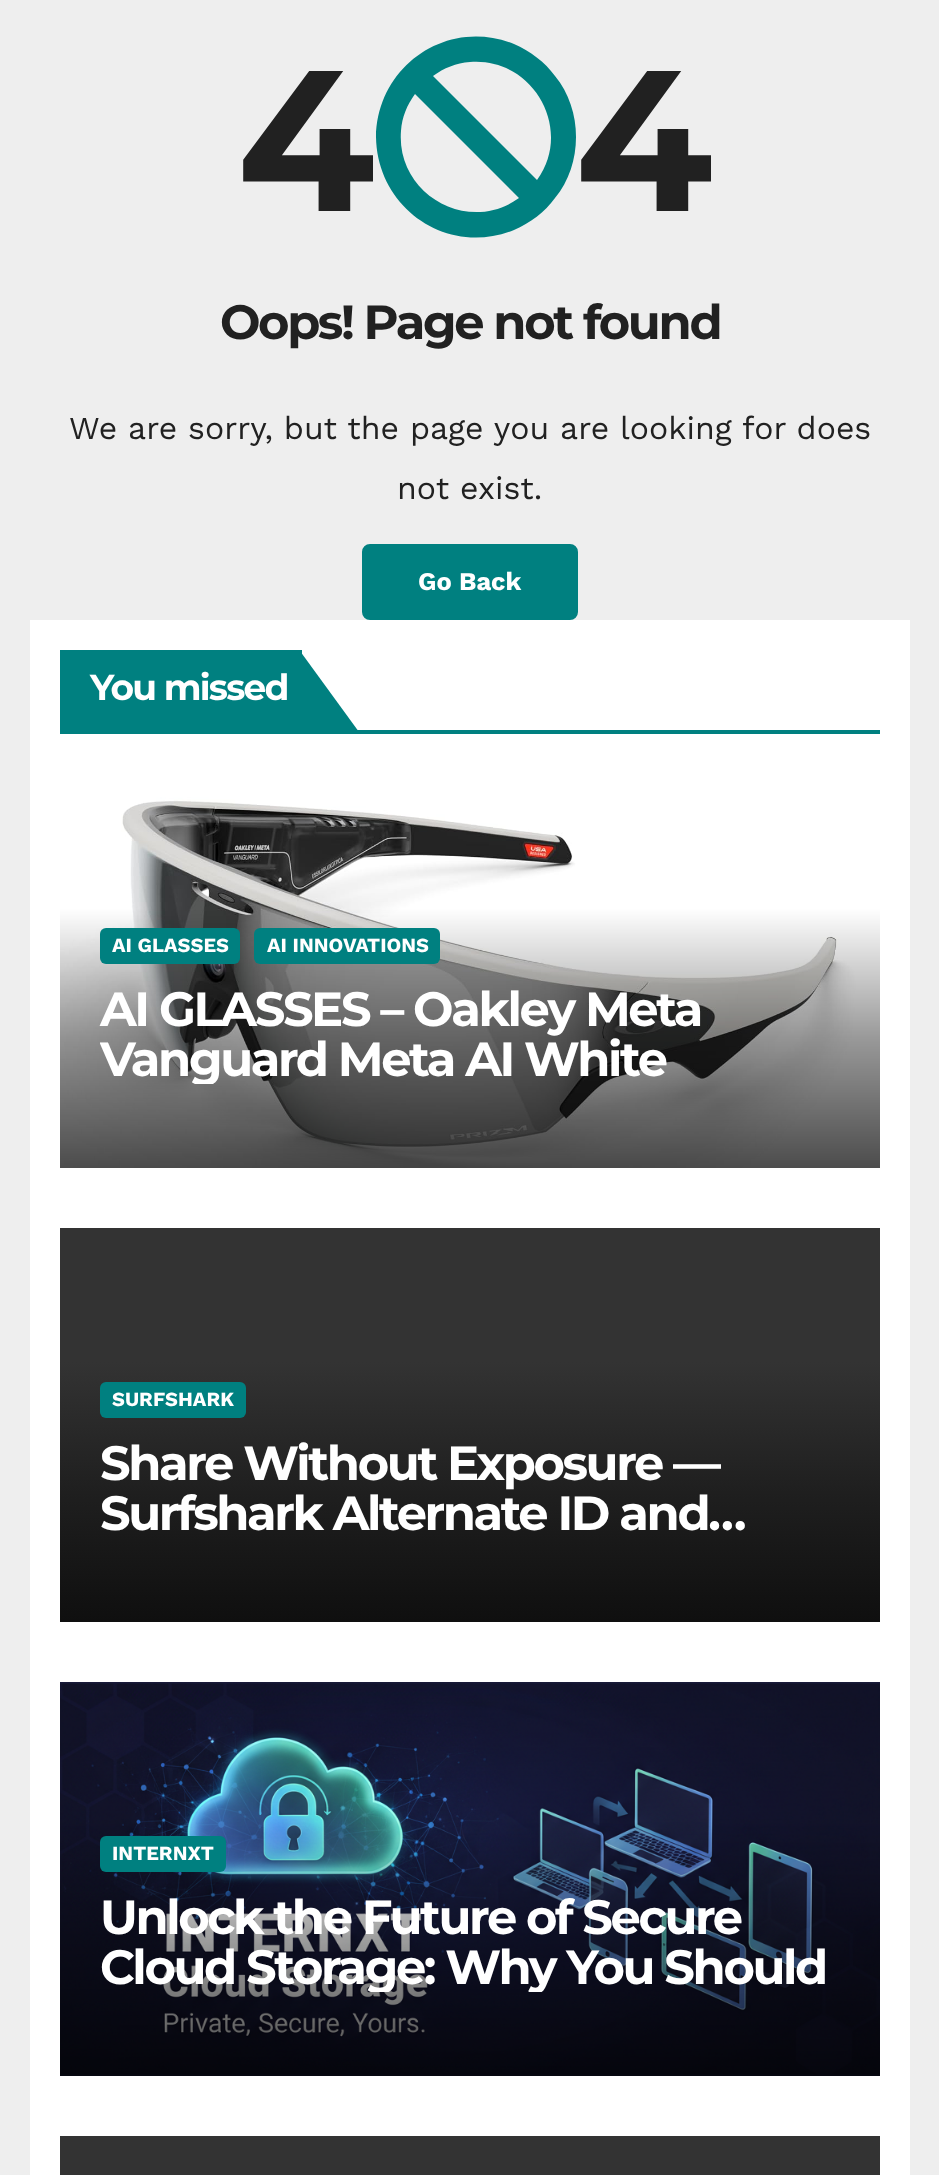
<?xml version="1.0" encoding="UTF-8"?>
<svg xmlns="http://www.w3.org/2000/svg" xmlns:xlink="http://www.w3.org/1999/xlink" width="939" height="2175">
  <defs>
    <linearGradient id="g1" gradientUnits="userSpaceOnUse" x1="470" y1="1362" x2="470" y2="1622"><stop offset="0" stop-color="#333333" /><stop offset="0.5" stop-color="#1f1f1f" /><stop offset="1" stop-color="#0f0f0f" /></linearGradient>
    <clipPath id="clip1"><rect x="100" y="984" width="740" height="100" /></clipPath>
    <clipPath id="clip2"><rect x="100" y="1892" width="740" height="100" /></clipPath>
  </defs>
  <rect width="100%" height="100%" fill="#eeeeee" />
  <path d="M 519 198 l -104 -104 c -8 11 -13 23 -14 37 c -5 63 67 104 118 67 z m 18 -18 c 37 -51 -4 -123 -67 -118 c -14 1 -26 6 -37 14 z m -161 -43 c 1 -71 71 -120 138 -93 c 16 7 31 18 41 32 c 14 17 21 39 21 61 c 0 22 -7 44 -21 61 c -10 14 -25 25 -41 32 c -67 27 -137 -22 -138 -93 z" fill="#008080" />
  <rect x="364" y="546" width="212" height="72" rx="6" fill="#008080" stroke="#008080" stroke-width="4" />
  <rect x="30" y="620" width="880" height="1555" fill="#ffffff" />
  <rect x="60" y="730" width="820" height="4" fill="#008080" />
  <rect x="60" y="650" width="242" height="80" fill="#008080" />
  <path d="M 359 732 h -59 v -81 z" fill="#008080" />
  <image x="60" y="774" width="820" height="394" xlink:href="image1.png" />
  <rect x="100" y="928" width="140" height="36" rx="6" fill="#008080" />
  <rect x="254" y="928" width="186" height="36" rx="6" fill="#008080" />
  <rect x="60" y="1228" width="820" height="134" fill="#333333" />
  <rect x="60" y="1362" width="820" height="260" fill="url(#g1)" />
  <rect x="100" y="1382" width="146" height="36" rx="6" fill="#008080" />
  <image x="60" y="1682" width="820" height="394" xlink:href="image2.png" />
  <rect x="100" y="1836" width="126" height="36" rx="6" fill="#008080" />
  <rect x="60" y="2136" width="820" height="39" fill="#333333" />
  <text x="237" y="211" style="font-family: Montserrat; font-size: 200px; font-weight: 100; letter-spacing: -10px; fill: #212121">4</text>
  <text x="575" y="211" style="font-family: Montserrat; font-size: 200px; font-weight: 100; letter-spacing: -10px; fill: #212121">4</text>
  <text x="220" y="339" style="font-family: Montserrat; font-size: 48px; font-weight: 100; letter-spacing: -2.4px; fill: #212121">Oops! Page not found</text>
  <text x="69" y="439" style="font-family: Work Sans; font-size: 32px; fill: #212121">We are sorry, but the page you are looking for does</text>
  <text x="397" y="499" style="font-family: Work Sans; font-size: 32px; fill: #212121">not exist.</text>
  <text x="418" y="590" style="font-family: Work Sans; font-size: 25.5px; font-weight: bold; fill: #ffffff">Go Back</text>
  <text x="90" y="700" style="font-family: Montserrat; font-size: 36px; font-weight: 100; letter-spacing: -1.75px; fill: #ffffff">You missed</text>
  <text x="112" y="952" style="font-family: Work Sans; font-size: 20px; font-weight: bold; fill: #ffffff">AI GLASSES</text>
  <text x="267" y="952" style="font-family: Work Sans; font-size: 20px; font-weight: bold; fill: #ffffff">AI INNOVATIONS</text>
  <text x="100" y="1026" style="font-family: Montserrat; font-size: 48px; font-weight: 100; letter-spacing: -2.4px; fill: #ffffff">AI GLASSES – Oakley Meta</text>
  <g clip-path="url(#clip1)">
    <text x="100" y="1076" style="font-family: Montserrat; font-size: 48px; font-weight: 100; letter-spacing: -2.4px; fill: #ffffff">Vanguard Meta AI White</text>
  </g>
  <text x="112" y="1406" style="font-family: Work Sans; font-size: 20px; font-weight: bold; fill: #ffffff">SURFSHARK</text>
  <text x="100" y="1480" style="font-family: Montserrat; font-size: 48px; font-weight: 100; letter-spacing: -2.4px; fill: #ffffff">Share Without Exposure —</text>
  <text x="100" y="1530" style="font-family: Montserrat; font-size: 48px; font-weight: 100; letter-spacing: -2.4px; fill: #ffffff">Surfshark Alternate ID and…</text>
  <text x="112" y="1860" style="font-family: Work Sans; font-size: 20px; font-weight: bold; fill: #ffffff">INTERNXT</text>
  <text x="100" y="1934" style="font-family: Montserrat; font-size: 48px; font-weight: 100; letter-spacing: -2.4px; fill: #ffffff">Unlock the Future of Secure</text>
  <g clip-path="url(#clip2)">
    <text x="100" y="1984" style="font-family: Montserrat; font-size: 48px; font-weight: 100; letter-spacing: -2.4px; fill: #ffffff">Cloud Storage: Why You Should</text>
  </g>
</svg>
